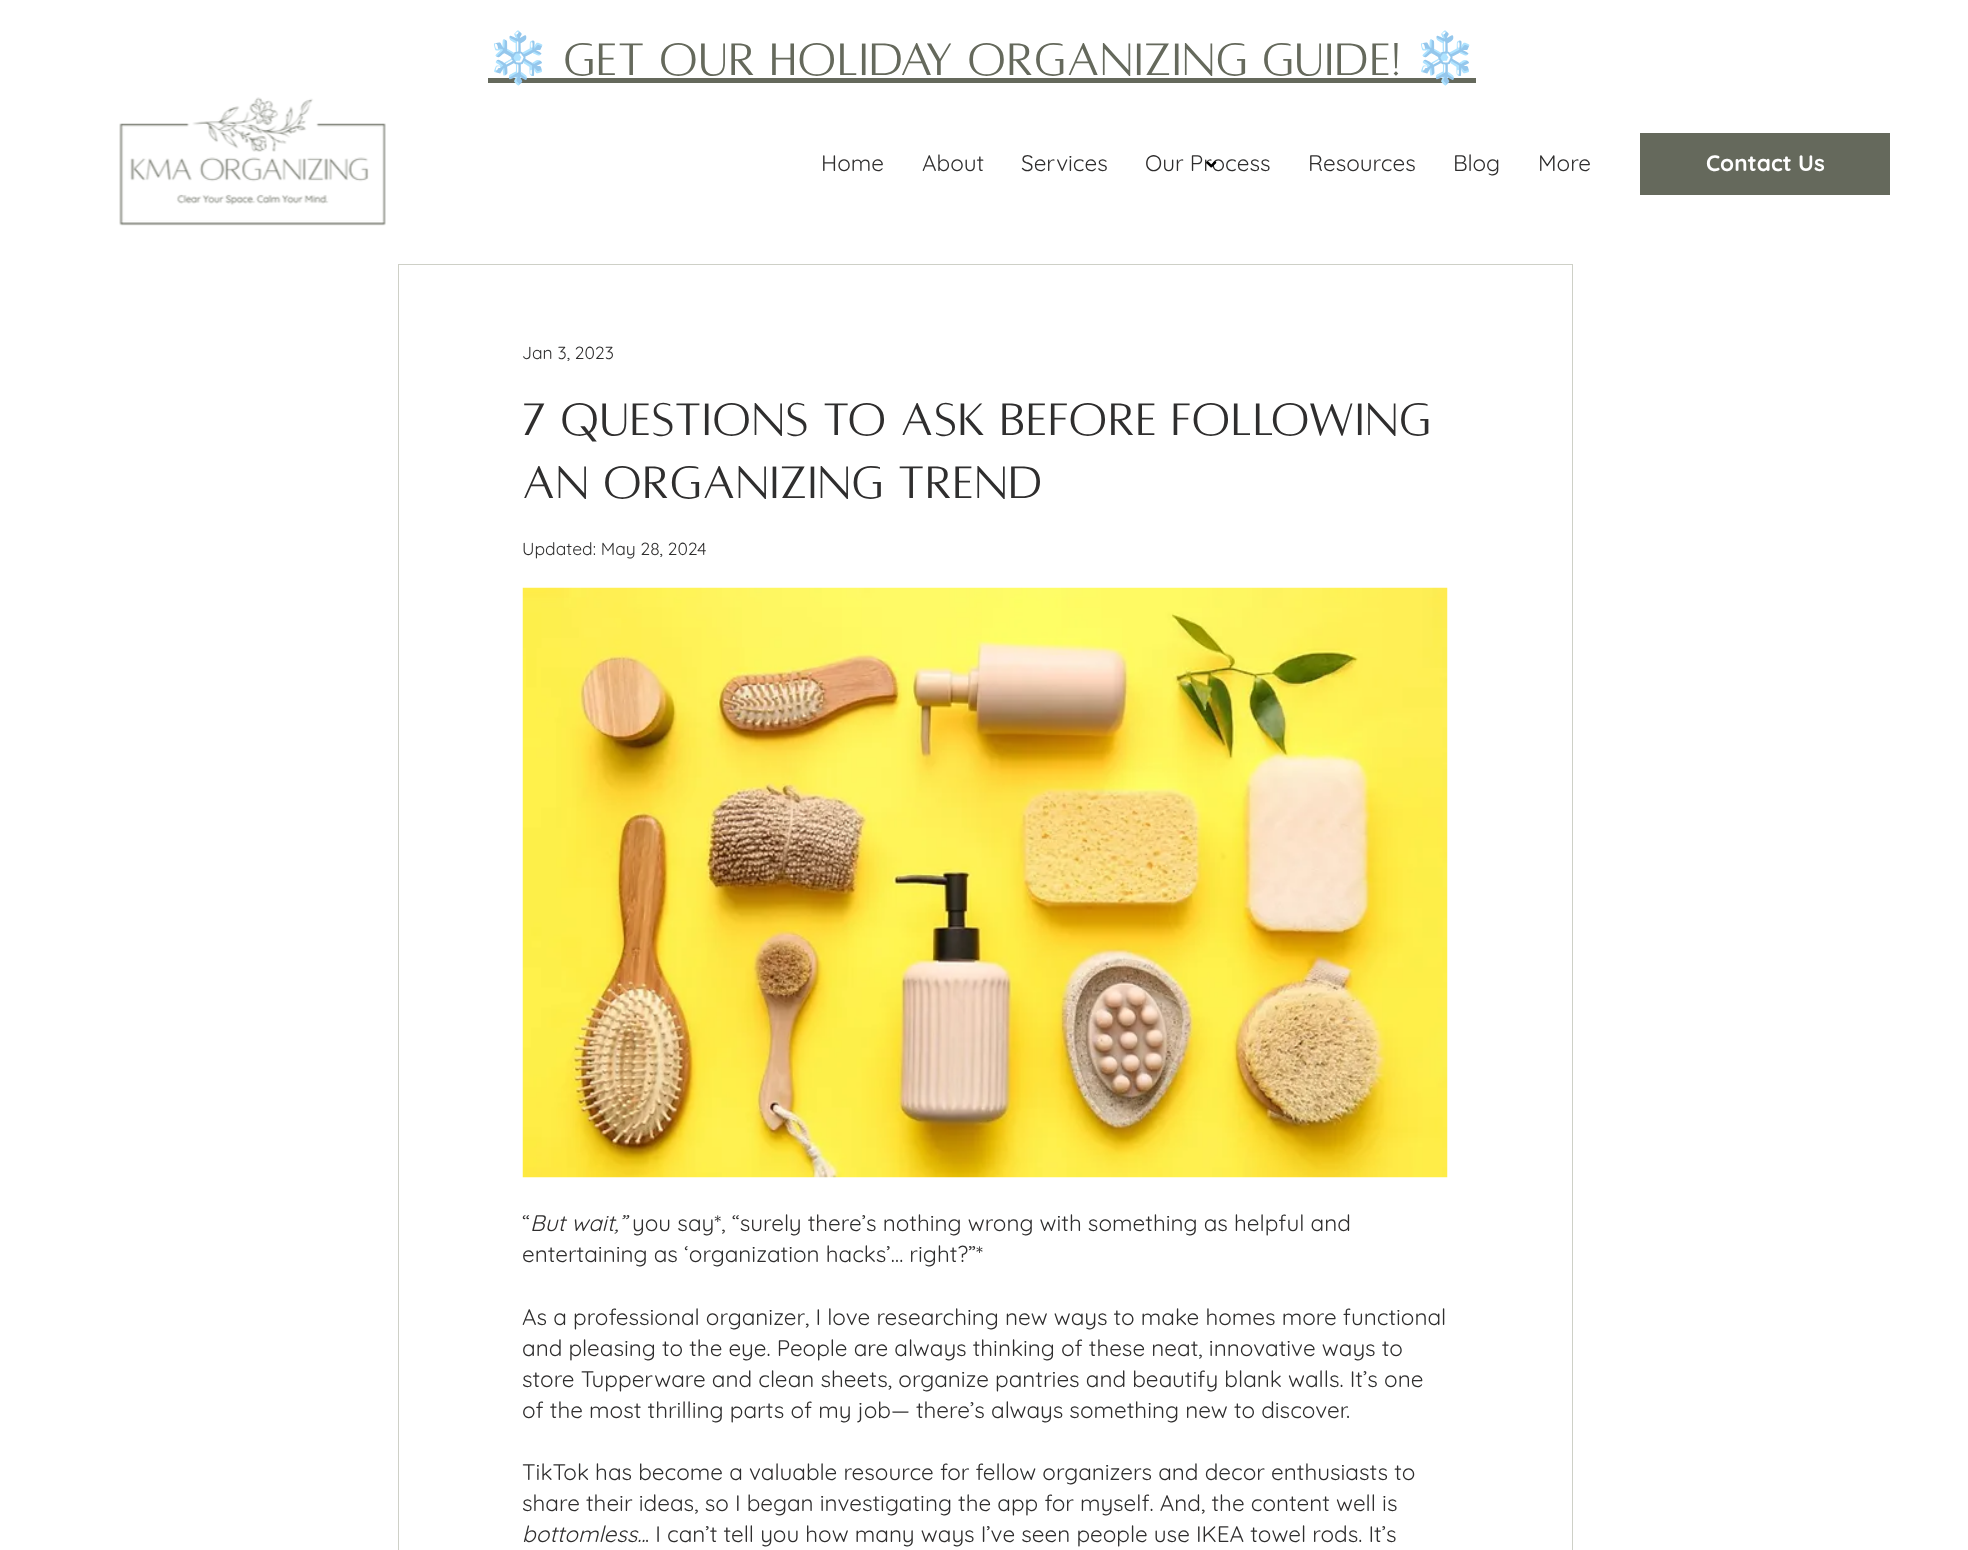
<?xml version="1.0" encoding="UTF-8"?>
<svg xmlns="http://www.w3.org/2000/svg" xmlns:xlink="http://www.w3.org/1999/xlink" width="1968" height="1550">
  <rect width="100%" height="100%" fill="#ffffff" />
  <rect x="488" y="78" width="988" height="5" fill="#65695c" />
  <image x="119" y="97" width="267" height="129" xlink:href="image1.png" />
  <rect x="1640" y="133" width="250" height="62" fill="#65695c" />
  <rect x="398.5" y="264.5" width="1174" height="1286" fill="none" stroke="#ced0c7" />
  <image x="522" y="587" width="926" height="591" xlink:href="image3.png" />
  <text x="487" y="75" style="font-family: Noto Color Emoji; font-size: 50px; fill: #65695c">❄️</text>
  <text x="563" y="75" style="font-family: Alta; font-size: 50px; fill: #65695c">Get our HOLIDAY ORGANIZING guide!</text>
  <text x="1414" y="75" style="font-family: Noto Color Emoji; font-size: 50px; fill: #65695c">❄️</text>
  <text x="821" y="171" style="font-family: Quicksand; font-size: 22.5px; fill: #2f2e2e">Home</text>
  <text x="922" y="171" style="font-family: Quicksand; font-size: 22.5px; fill: #2f2e2e">About</text>
  <text x="1021" y="171" style="font-family: Quicksand; font-size: 22.5px; fill: #2f2e2e">Services</text>
  <text x="1145" y="171" style="font-family: Quicksand; font-size: 22.5px; fill: #2f2e2e">Our Process</text>
  <text x="1308" y="171" style="font-family: Quicksand; font-size: 22.5px; fill: #2f2e2e">Resources</text>
  <text x="1453" y="171" style="font-family: Quicksand; font-size: 22.5px; fill: #2f2e2e">Blog</text>
  <text x="1538" y="171" style="font-family: Quicksand; font-size: 22.5px; fill: #2f2e2e">More</text>
  <image x="1206" y="161" width="11" height="7" xlink:href="image2.png" />
  <text x="1706" y="171" style="font-family: Quicksand; font-size: 22.5px; font-weight: bold; fill: #ffffff">Contact Us</text>
  <text x="522" y="359" style="font-family: Quicksand; font-size: 17.5px; fill: #2f2e2e">Jan 3, 2023</text>
  <text x="522" y="435" style="font-family: Alta; font-size: 50px; fill: #2f2e2e">7 Questions to Ask Before Following</text>
  <text x="522" y="498" style="font-family: Alta; font-size: 50px; fill: #2f2e2e">An Organizing Trend</text>
  <text x="522" y="555" style="font-family: Quicksand; font-size: 17.5px; fill: #2f2e2e">Updated: May 28, 2024</text>
  <text x="522" y="1231" style="font-family: Quicksand; font-size: 22.5px; fill: #2f2e2e">“</text>
  <text x="530" y="1231" style="font-family: Quicksand; font-size: 22.5px; font-style: italic; fill: #2f2e2e">But wait,”</text>
  <text x="632" y="1231" style="font-family: Quicksand; font-size: 22.5px; fill: #2f2e2e">you say*, “surely there’s nothing wrong with something as helpful and</text>
  <text x="522" y="1262" style="font-family: Quicksand; font-size: 22.5px; fill: #2f2e2e">entertaining as ‘organization hacks’… right?”*</text>
  <text x="522" y="1325" style="font-family: Quicksand; font-size: 22.5px; fill: #2f2e2e">As a professional organizer, I love researching new ways to make homes more functional</text>
  <text x="522" y="1356" style="font-family: Quicksand; font-size: 22.5px; fill: #2f2e2e">and pleasing to the eye. People are always thinking of these neat, innovative ways to</text>
  <text x="522" y="1387" style="font-family: Quicksand; font-size: 22.5px; fill: #2f2e2e">store Tupperware and clean sheets, organize pantries and beautify blank walls. It’s one</text>
  <text x="522" y="1418" style="font-family: Quicksand; font-size: 22.5px; fill: #2f2e2e">of the most thrilling parts of my job— there’s always something new to discover.</text>
  <text x="522" y="1480" style="font-family: Quicksand; font-size: 22.5px; fill: #2f2e2e">TikTok has become a valuable resource for fellow organizers and decor enthusiasts to</text>
  <text x="522" y="1511" style="font-family: Quicksand; font-size: 22.5px; fill: #2f2e2e">share their ideas, so I began investigating the app for myself. And, the content well is</text>
  <text x="522" y="1542" style="font-family: Quicksand; font-size: 22.5px; font-style: italic; fill: #2f2e2e">bottomless..</text>
  <text x="645" y="1542" style="font-family: Quicksand; font-size: 22.5px; fill: #2f2e2e">. I can’t tell you how many ways I’ve seen people use IKEA towel rods. It’s</text>
</svg>
